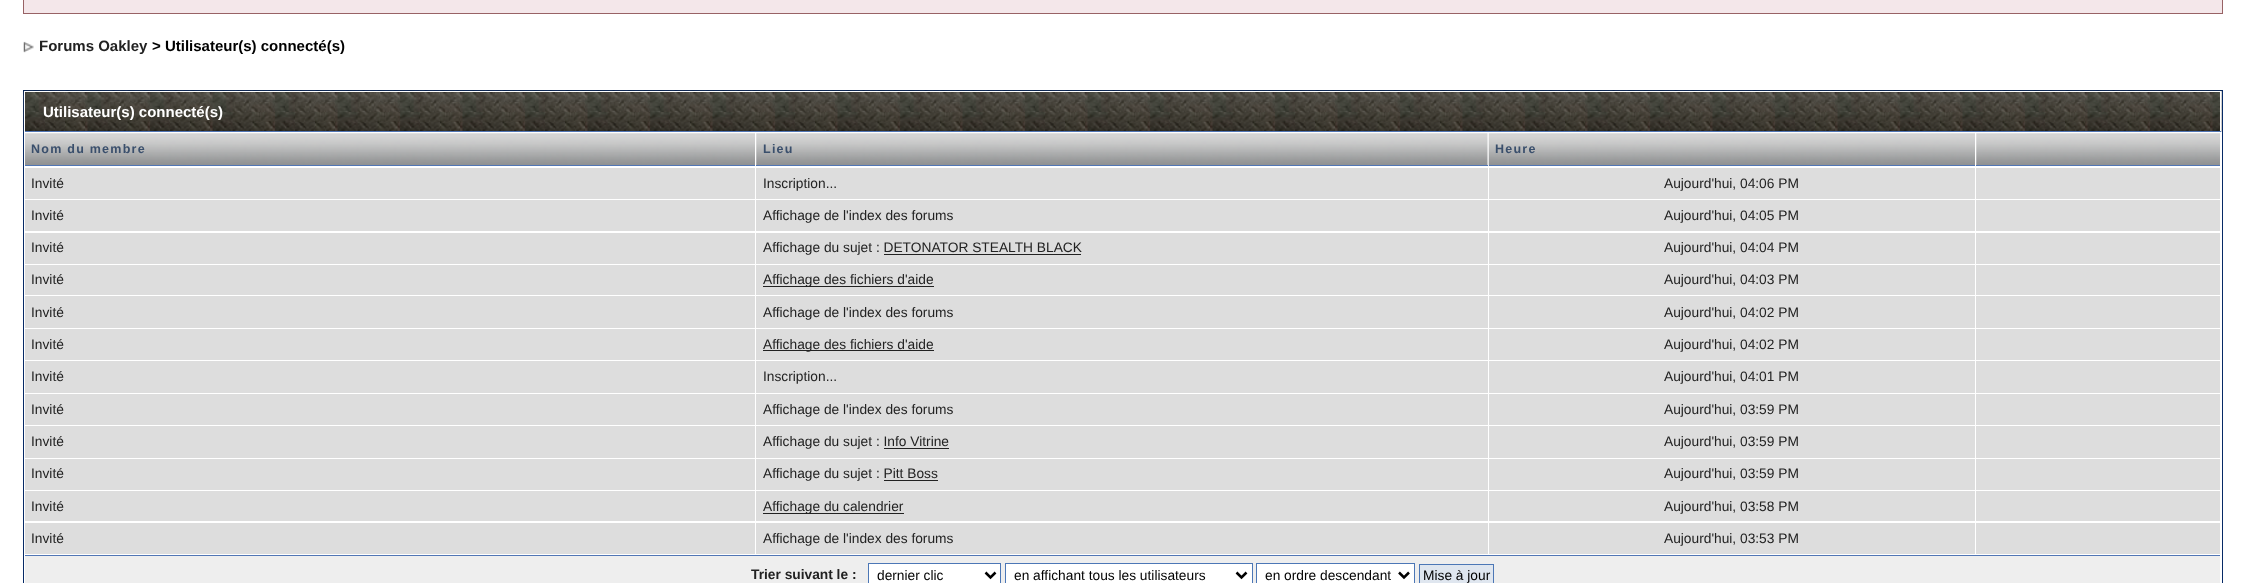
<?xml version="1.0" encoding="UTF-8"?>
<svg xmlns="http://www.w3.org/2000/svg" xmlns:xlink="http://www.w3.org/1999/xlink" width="2245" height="583">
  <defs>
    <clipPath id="clip1"><rect x="1265" y="566" width="126" height="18" /></clipPath>
  </defs>
  <rect width="100%" height="100%" fill="#ffffff" />
  <rect x="23.5" y="-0.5" width="2199" height="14" fill="#f4e7ea" stroke="#986265" />
  <image x="23" y="41" width="11" height="12" xlink:href="image1.png" />
  <rect x="23.5" y="90.5" width="2199" height="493" fill="none" stroke="#072a66" />
  <image x="23" y="90" width="2199" height="42" xlink:href="image2.png" />
  <rect x="24" y="91" width="2197" height="1" fill="#ffffff" />
  <rect x="2220" y="91" width="1" height="42" fill="#ffffff" />
  <rect x="24" y="131" width="2197" height="1" fill="#5176b5" />
  <rect x="24" y="91" width="1" height="42" fill="#ffffff" />
  <image x="25" y="133" width="730" height="32" xlink:href="image3.png" />
  <rect x="25" y="165" width="730" height="1" fill="#5176b5" />
  <image x="756" y="133" width="732" height="32" xlink:href="image4.png" />
  <rect x="756" y="165" width="732" height="1" fill="#5176b5" />
  <image x="1488" y="133" width="487" height="33" xlink:href="image5.png" />
  <rect x="1489" y="165" width="486" height="1" fill="#5176b5" />
  <image x="1976" y="133" width="244" height="32" xlink:href="image6.png" />
  <rect x="1976" y="165" width="244" height="1" fill="#5176b5" />
  <rect x="25" y="168" width="730" height="31" fill="#dddddd" />
  <rect x="756" y="168" width="732" height="31" fill="#dddddd" />
  <rect x="1489" y="168" width="486" height="31" fill="#dddddd" />
  <rect x="1976" y="168" width="244" height="31" fill="#dddddd" />
  <rect x="25" y="200" width="730" height="31" fill="#dddddd" />
  <rect x="756" y="200" width="732" height="31" fill="#dddddd" />
  <rect x="1489" y="200" width="486" height="31" fill="#dddddd" />
  <rect x="1976" y="200" width="244" height="31" fill="#dddddd" />
  <rect x="25" y="233" width="730" height="31" fill="#dddddd" />
  <rect x="756" y="233" width="732" height="31" fill="#dddddd" />
  <rect x="884" y="254" width="197" height="1" fill="#222222" />
  <rect x="1489" y="233" width="486" height="31" fill="#dddddd" />
  <rect x="1976" y="233" width="244" height="31" fill="#dddddd" />
  <rect x="25" y="265" width="730" height="30" fill="#dddddd" />
  <rect x="756" y="265" width="732" height="30" fill="#dddddd" />
  <rect x="763" y="286" width="171" height="1" fill="#222222" />
  <rect x="1489" y="265" width="486" height="30" fill="#dddddd" />
  <rect x="1976" y="265" width="244" height="30" fill="#dddddd" />
  <rect x="25" y="296" width="730" height="32" fill="#dddddd" />
  <rect x="756" y="296" width="732" height="32" fill="#dddddd" />
  <rect x="1489" y="296" width="486" height="32" fill="#dddddd" />
  <rect x="1976" y="296" width="244" height="32" fill="#dddddd" />
  <rect x="25" y="329" width="730" height="31" fill="#dddddd" />
  <rect x="756" y="329" width="732" height="31" fill="#dddddd" />
  <rect x="763" y="350" width="171" height="1" fill="#222222" />
  <rect x="1489" y="329" width="486" height="31" fill="#dddddd" />
  <rect x="1976" y="329" width="244" height="31" fill="#dddddd" />
  <rect x="25" y="361" width="730" height="32" fill="#dddddd" />
  <rect x="756" y="361" width="732" height="32" fill="#dddddd" />
  <rect x="1489" y="361" width="486" height="32" fill="#dddddd" />
  <rect x="1976" y="361" width="244" height="32" fill="#dddddd" />
  <rect x="25" y="394" width="730" height="31" fill="#dddddd" />
  <rect x="756" y="394" width="732" height="31" fill="#dddddd" />
  <rect x="1489" y="394" width="486" height="31" fill="#dddddd" />
  <rect x="1976" y="394" width="244" height="31" fill="#dddddd" />
  <rect x="25" y="426" width="730" height="32" fill="#dddddd" />
  <rect x="756" y="426" width="732" height="32" fill="#dddddd" />
  <rect x="884" y="448" width="65" height="1" fill="#222222" />
  <rect x="1489" y="426" width="486" height="32" fill="#dddddd" />
  <rect x="1976" y="426" width="244" height="32" fill="#dddddd" />
  <rect x="25" y="459" width="730" height="31" fill="#dddddd" />
  <rect x="756" y="459" width="732" height="31" fill="#dddddd" />
  <rect x="884" y="480" width="54" height="1" fill="#222222" />
  <rect x="1489" y="459" width="486" height="31" fill="#dddddd" />
  <rect x="1976" y="459" width="244" height="31" fill="#dddddd" />
  <rect x="25" y="491" width="730" height="30" fill="#dddddd" />
  <rect x="756" y="491" width="732" height="30" fill="#dddddd" />
  <rect x="763" y="513" width="141" height="1" fill="#222222" />
  <rect x="1489" y="491" width="486" height="30" fill="#dddddd" />
  <rect x="1976" y="491" width="244" height="30" fill="#dddddd" />
  <rect x="25" y="523" width="730" height="31" fill="#dddddd" />
  <rect x="756" y="523" width="732" height="31" fill="#dddddd" />
  <rect x="1489" y="523" width="486" height="31" fill="#dddddd" />
  <rect x="1976" y="523" width="244" height="31" fill="#dddddd" />
  <rect x="25" y="556" width="2195" height="27" fill="#eeeeee" />
  <rect x="25" y="555" width="2195" height="1" fill="#5176b5" />
  <rect x="868.5" y="563.5" width="132" height="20" fill="#ffffff" stroke="#4c77b6" />
  <path d="M 985.5 572.5 l 5 5 l 5 -5" fill="none" stroke="#000000" stroke-width="2.5" />
  <rect x="1005.5" y="563.5" width="247" height="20" fill="#ffffff" stroke="#4c77b6" />
  <path d="M 1236.5 572.5 l 5 5 l 5 -5" fill="none" stroke="#000000" stroke-width="2.5" />
  <rect x="1256.5" y="563.5" width="158" height="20" fill="#ffffff" stroke="#4c77b6" />
  <path d="M 1399 572.5 l 5 5 l 5 -5" fill="none" stroke="#000000" stroke-width="2.5" />
  <rect x="1419.5" y="564.5" width="74" height="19" fill="#dfe6ef" stroke="#4c77b6" />
  <text x="39" y="51" style="font-family: Liberation Sans; font-size: 15px; font-weight: bold; fill: #222222">Forums Oakley</text>
  <text x="152" y="51" style="font-family: Liberation Sans; font-size: 15px; font-weight: bold; fill: #000000">&gt; Utilisateur(s) connecté(s)</text>
  <text x="43" y="117" style="font-family: Liberation Sans; font-size: 15px; font-weight: bold; fill: #ffffff">Utilisateur(s) connecté(s)</text>
  <text x="31" y="153" style="font-family: Liberation Sans; font-size: 12.5px; font-weight: bold; letter-spacing: 1.25px; fill: #3a4f6c">Nom du membre</text>
  <text x="763" y="153" style="font-family: Liberation Sans; font-size: 12.5px; font-weight: bold; letter-spacing: 1.25px; fill: #3a4f6c">Lieu</text>
  <text x="1495" y="153" style="font-family: Liberation Sans; font-size: 12.5px; font-weight: bold; letter-spacing: 1.25px; fill: #3a4f6c">Heure</text>
  <text x="31" y="188" style="font-family: Liberation Sans; font-size: 13.75px; fill: #222222">Invité</text>
  <text x="763" y="188" style="font-family: Liberation Sans; font-size: 13.75px; fill: #222222">Inscription...</text>
  <text x="1664" y="188" style="font-family: Liberation Sans; font-size: 13.75px; fill: #222222">Aujourd'hui, 04:06 PM</text>
  <text x="31" y="220" style="font-family: Liberation Sans; font-size: 13.75px; fill: #222222">Invité</text>
  <text x="763" y="220" style="font-family: Liberation Sans; font-size: 13.75px; fill: #222222">Affichage de l'index des forums</text>
  <text x="1664" y="220" style="font-family: Liberation Sans; font-size: 13.75px; fill: #222222">Aujourd'hui, 04:05 PM</text>
  <text x="31" y="252" style="font-family: Liberation Sans; font-size: 13.75px; fill: #222222">Invité</text>
  <text x="763" y="252" style="font-family: Liberation Sans; font-size: 13.75px; fill: #222222">Affichage du sujet : DETONATOR STEALTH BLACK</text>
  <text x="1664" y="252" style="font-family: Liberation Sans; font-size: 13.75px; fill: #222222">Aujourd'hui, 04:04 PM</text>
  <text x="31" y="284" style="font-family: Liberation Sans; font-size: 13.75px; fill: #222222">Invité</text>
  <text x="763" y="284" style="font-family: Liberation Sans; font-size: 13.75px; fill: #222222">Affichage des fichiers d'aide</text>
  <text x="1664" y="284" style="font-family: Liberation Sans; font-size: 13.75px; fill: #222222">Aujourd'hui, 04:03 PM</text>
  <text x="31" y="317" style="font-family: Liberation Sans; font-size: 13.75px; fill: #222222">Invité</text>
  <text x="763" y="317" style="font-family: Liberation Sans; font-size: 13.75px; fill: #222222">Affichage de l'index des forums</text>
  <text x="1664" y="317" style="font-family: Liberation Sans; font-size: 13.75px; fill: #222222">Aujourd'hui, 04:02 PM</text>
  <text x="31" y="349" style="font-family: Liberation Sans; font-size: 13.75px; fill: #222222">Invité</text>
  <text x="763" y="349" style="font-family: Liberation Sans; font-size: 13.75px; fill: #222222">Affichage des fichiers d'aide</text>
  <text x="1664" y="349" style="font-family: Liberation Sans; font-size: 13.75px; fill: #222222">Aujourd'hui, 04:02 PM</text>
  <text x="31" y="381" style="font-family: Liberation Sans; font-size: 13.75px; fill: #222222">Invité</text>
  <text x="763" y="381" style="font-family: Liberation Sans; font-size: 13.75px; fill: #222222">Inscription...</text>
  <text x="1664" y="381" style="font-family: Liberation Sans; font-size: 13.75px; fill: #222222">Aujourd'hui, 04:01 PM</text>
  <text x="31" y="414" style="font-family: Liberation Sans; font-size: 13.75px; fill: #222222">Invité</text>
  <text x="763" y="414" style="font-family: Liberation Sans; font-size: 13.75px; fill: #222222">Affichage de l'index des forums</text>
  <text x="1664" y="414" style="font-family: Liberation Sans; font-size: 13.75px; fill: #222222">Aujourd'hui, 03:59 PM</text>
  <text x="31" y="446" style="font-family: Liberation Sans; font-size: 13.75px; fill: #222222">Invité</text>
  <text x="763" y="446" style="font-family: Liberation Sans; font-size: 13.75px; fill: #222222">Affichage du sujet : Info Vitrine</text>
  <text x="1664" y="446" style="font-family: Liberation Sans; font-size: 13.75px; fill: #222222">Aujourd'hui, 03:59 PM</text>
  <text x="31" y="478" style="font-family: Liberation Sans; font-size: 13.75px; fill: #222222">Invité</text>
  <text x="763" y="478" style="font-family: Liberation Sans; font-size: 13.75px; fill: #222222">Affichage du sujet : Pitt Boss</text>
  <text x="1664" y="478" style="font-family: Liberation Sans; font-size: 13.75px; fill: #222222">Aujourd'hui, 03:59 PM</text>
  <text x="31" y="511" style="font-family: Liberation Sans; font-size: 13.75px; fill: #222222">Invité</text>
  <text x="763" y="511" style="font-family: Liberation Sans; font-size: 13.75px; fill: #222222">Affichage du calendrier</text>
  <text x="1664" y="511" style="font-family: Liberation Sans; font-size: 13.75px; fill: #222222">Aujourd'hui, 03:58 PM</text>
  <text x="31" y="543" style="font-family: Liberation Sans; font-size: 13.75px; fill: #222222">Invité</text>
  <text x="763" y="543" style="font-family: Liberation Sans; font-size: 13.75px; fill: #222222">Affichage de l'index des forums</text>
  <text x="1664" y="543" style="font-family: Liberation Sans; font-size: 13.75px; fill: #222222">Aujourd'hui, 03:53 PM</text>
  <text x="751" y="579" style="font-family: Liberation Sans; font-size: 13.75px; font-weight: bold; fill: #222222">Trier suivant le :</text>
  <text x="877" y="580" style="font-family: Liberation Sans; font-size: 13.75px; fill: #000000">dernier clic</text>
  <text x="1014" y="580" style="font-family: Liberation Sans; font-size: 13.75px; fill: #000000">en affichant tous les utilisateurs</text>
  <g clip-path="url(#clip1)">
    <text x="1265" y="580" style="font-family: Liberation Sans; font-size: 13.75px; fill: #000000">en ordre descendant</text>
  </g>
  <text x="1423" y="580" style="font-family: Liberation Sans; font-size: 13.75px; fill: #000000">Mise à jour</text>
</svg>
